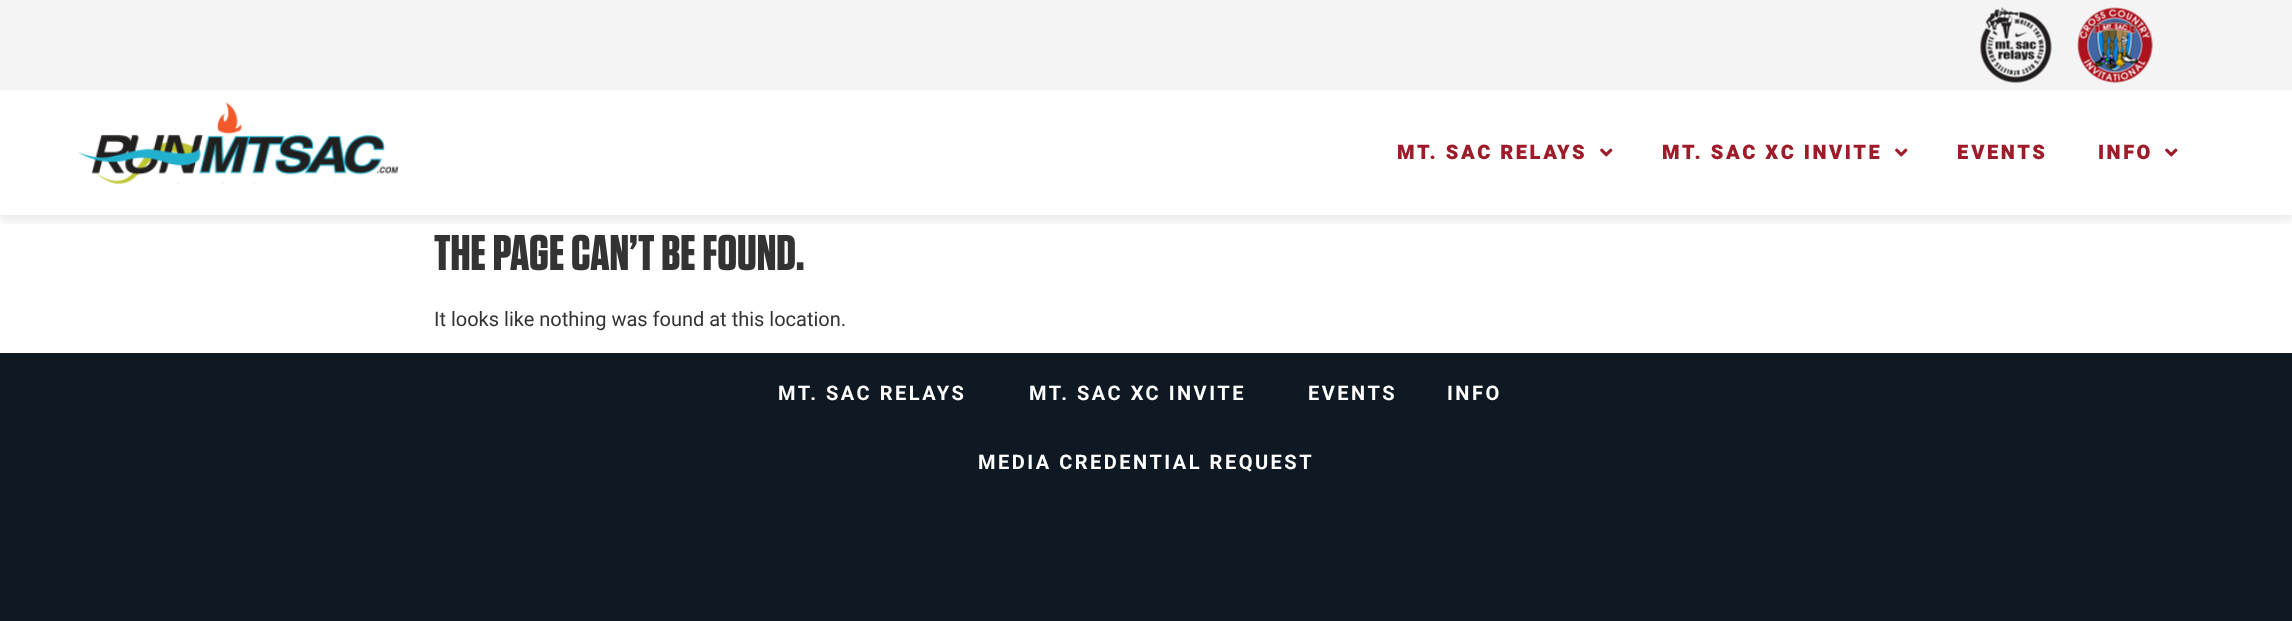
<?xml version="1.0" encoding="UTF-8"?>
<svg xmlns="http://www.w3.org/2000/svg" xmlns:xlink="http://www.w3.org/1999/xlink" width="2292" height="621">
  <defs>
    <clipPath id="clip1"><rect x="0" y="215" width="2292" height="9" /></clipPath>
  </defs>
  <rect width="100%" height="100%" fill="#ffffff" />
  <rect width="2292" height="90" fill="#f4f4f4" />
  <image x="1980" y="7" width="72" height="76" xlink:href="image1.png" />
  <image x="2077" y="7" width="76" height="76" xlink:href="image2.png" />
  <g clip-path="url(#clip1)">
    <rect x="-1" y="94" width="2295" height="127" fill="#000000" fill-opacity="0.08" filter="blur(5px)" />
  </g>
  <image x="77" y="102" width="322" height="82" xlink:href="image3.png" />
  <image x="1600" y="148" width="13" height="9" xlink:href="image4.png" />
  <image x="1895" y="148" width="13" height="9" xlink:href="image4.png" />
  <image x="2165" y="148" width="13" height="9" xlink:href="image4.png" />
  <rect y="353" width="2292" height="268" fill="#0f1923" />
  <text x="1397" y="159" style="font-family: Heebo; font-size: 20px; font-weight: 900; letter-spacing: 2.5px; fill: #9e1b2a">MT. SAC RELAYS</text>
  <text x="1662" y="159" style="font-family: Heebo; font-size: 20px; font-weight: 900; letter-spacing: 2.5px; fill: #9e1b2a">MT. SAC XC INVITE</text>
  <text x="1957" y="159" style="font-family: Heebo; font-size: 20px; font-weight: 900; letter-spacing: 2.5px; fill: #9e1b2a">EVENTS</text>
  <text x="2098" y="159" style="font-family: Heebo; font-size: 20px; font-weight: 900; letter-spacing: 2.5px; fill: #9e1b2a">INFO</text>
  <text x="434" y="270" style="font-family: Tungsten; font-size: 50px; font-weight: bold; fill: #333333">THE PAGE CAN’T BE FOUND.</text>
  <text x="434" y="326" style="font-family: Roboto; font-size: 20px; fill: #333333">It looks like nothing was found at this location.</text>
  <text x="778" y="400" style="font-family: Roboto; font-size: 20px; font-weight: bold; letter-spacing: 2.5px; fill: #ffffff">MT. SAC RELAYS</text>
  <text x="1029" y="400" style="font-family: Roboto; font-size: 20px; font-weight: bold; letter-spacing: 2.5px; fill: #ffffff">MT. SAC XC INVITE</text>
  <text x="1308" y="400" style="font-family: Roboto; font-size: 20px; font-weight: bold; letter-spacing: 2.5px; fill: #ffffff">EVENTS</text>
  <text x="1447" y="400" style="font-family: Roboto; font-size: 20px; font-weight: bold; letter-spacing: 2.5px; fill: #ffffff">INFO</text>
  <text x="978" y="469" style="font-family: Roboto; font-size: 20px; font-weight: bold; letter-spacing: 2.5px; fill: #ffffff">MEDIA CREDENTIAL REQUEST</text>
</svg>
